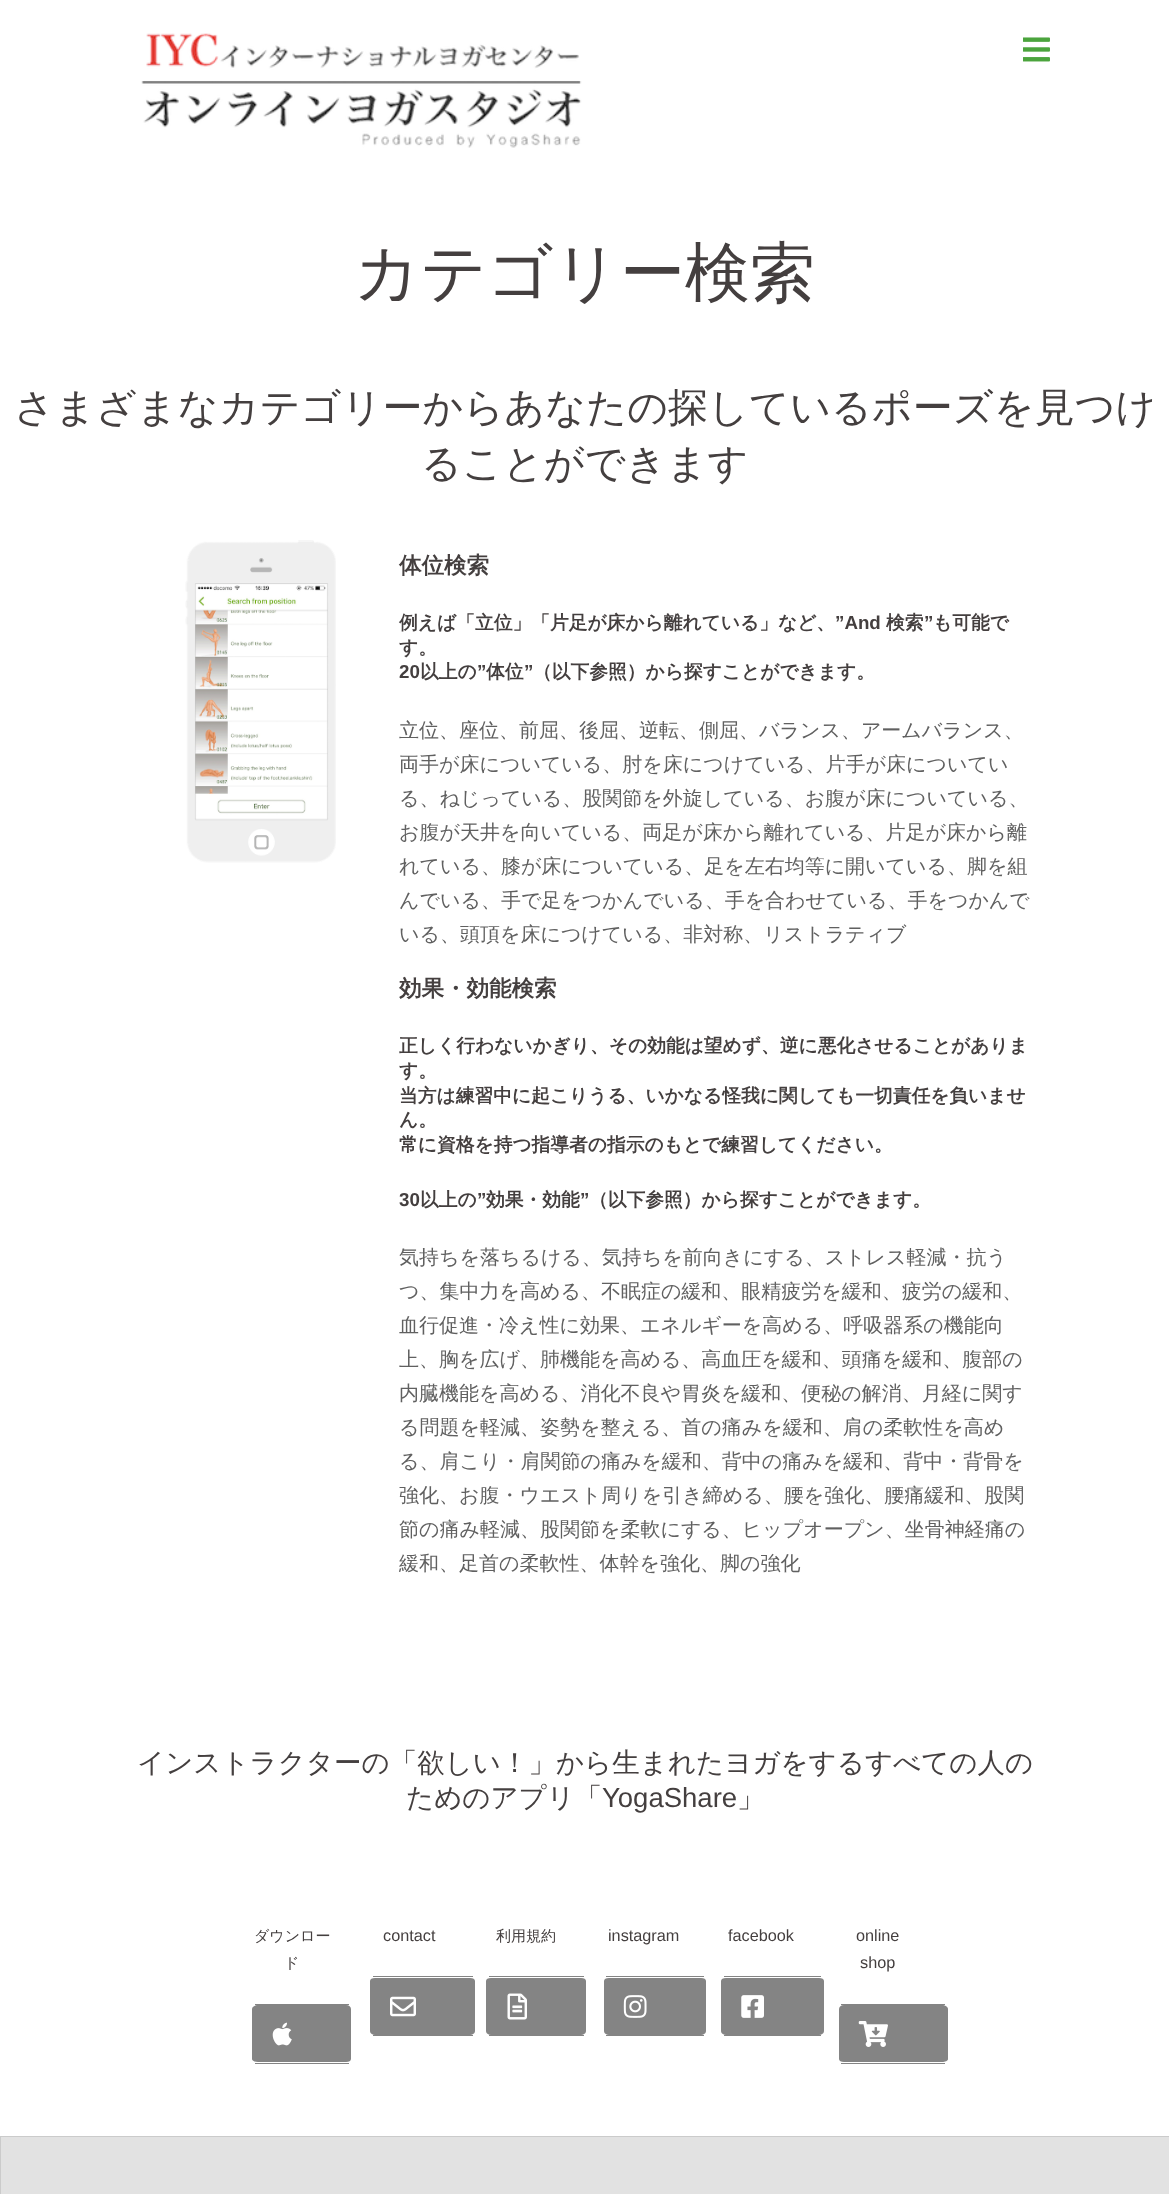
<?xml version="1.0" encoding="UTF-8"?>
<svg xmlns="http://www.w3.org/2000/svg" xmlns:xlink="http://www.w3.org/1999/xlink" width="1169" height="2194">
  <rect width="100%" height="100%" fill="#ffffff" />
  <image x="141" y="33" width="441" height="115" xlink:href="image1.png" />
  <image x="1023" y="37" width="27" height="25" xlink:href="image2.png" />
  <image x="185" y="540" width="151" height="323" xlink:href="image3.png" />
  <path d="M 258 2005 h 88 c 3 0 5 2 5 4 v 50 c 0 2 -2 3 -5 3 h -88 c -3 0 -6 -1 -6 -3 v -50 c 0 -2 3 -4 6 -4 z" fill="#848484" />
  <rect x="255" y="2004" width="94" height="1" fill="#848484" />
  <rect x="255" y="2063" width="94" height="1" fill="#848484" />
  <image x="272" y="2022" width="20" height="24" xlink:href="image4.png" />
  <path d="M 375 1978 h 95 c 3 0 5 1 5 3 v 50 c 0 2 -2 4 -5 4 h -95 c -3 0 -5 -2 -5 -4 v -50 c 0 -2 2 -3 5 -3 z" fill="#848484" />
  <rect x="373" y="1976" width="100" height="1" fill="#848484" />
  <rect x="373" y="2035" width="100" height="1" fill="#848484" />
  <image x="390" y="1996" width="26" height="21" xlink:href="image5.png" />
  <path d="M 491 1978 h 90 c 3 0 5 1 5 3 v 50 c 0 2 -2 4 -5 4 h -90 c -3 0 -5 -2 -5 -4 v -50 c 0 -2 2 -3 5 -3 z" fill="#848484" />
  <rect x="489" y="1976" width="95" height="1" fill="#848484" />
  <rect x="489" y="2035" width="95" height="1" fill="#848484" />
  <image x="507" y="1993" width="20" height="27" xlink:href="image6.png" />
  <path d="M 609 1978 h 92 c 3 0 5 1 5 3 v 50 c 0 2 -2 4 -5 4 h -92 c -3 0 -5 -2 -5 -4 v -50 c 0 -2 2 -3 5 -3 z" fill="#848484" />
  <rect x="606" y="1976" width="98" height="1" fill="#848484" />
  <rect x="606" y="2035" width="98" height="1" fill="#848484" />
  <image x="623" y="1995" width="24" height="23" xlink:href="image7.png" />
  <path d="M 726 1978 h 93 c 3 0 5 1 5 3 v 50 c 0 2 -2 4 -5 4 h -93 c -3 0 -5 -2 -5 -4 v -50 c 0 -2 2 -3 5 -3 z" fill="#848484" />
  <rect x="724" y="1976" width="97" height="1" fill="#848484" />
  <rect x="724" y="2035" width="97" height="1" fill="#848484" />
  <image x="741" y="1995" width="23" height="23" xlink:href="image8.png" />
  <path d="M 844 2005 h 98 c 3 0 6 2 6 4 v 50 c 0 2 -3 3 -6 3 h -98 c -3 0 -5 -1 -5 -3 v -50 c 0 -2 2 -4 5 -4 z" fill="#848484" />
  <rect x="841" y="2004" width="104" height="1" fill="#848484" />
  <rect x="841" y="2063" width="104" height="1" fill="#848484" />
  <image x="858" y="2021" width="30" height="26" xlink:href="image9.png" />
  <rect x="0.5" y="2136.5" width="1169" height="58" fill="#e2e2e2" stroke="#cbcbcb" />
  <text x="354" y="295" style="font-family: WenQuanYi Zen Hei; font-size: 65px; font-weight: 500; fill: #443f3f">カテゴリー検索</text>
  <text x="14" y="421" style="font-family: WenQuanYi Zen Hei; font-size: 40px; font-weight: 500; fill: #443f3f">さまざまなカテゴリーからあなたの探しているポーズを見つけ</text>
  <text x="421" y="477" style="font-family: WenQuanYi Zen Hei; font-size: 40px; font-weight: 500; fill: #443f3f">ることができます</text>
  <text x="399" y="573" style="font-family: WenQuanYi Zen Hei; font-size: 22.5px; font-weight: bold; fill: #443f3f">体位検索</text>
  <text x="399" y="629" style="font-family: WenQuanYi Zen Hei; font-size: 18.75px; font-weight: bold; fill: #443f3f">例えば「立位」「片足が床から離れている」など、</text>
  <text x="835" y="629" style="font-family: Liberation Sans; font-size: 18.75px; font-weight: bold; fill: #443f3f">”And</text>
  <text x="886" y="629" style="font-family: WenQuanYi Zen Hei; font-size: 18.75px; font-weight: bold; fill: #443f3f">検索</text>
  <text x="924" y="629" style="font-family: Liberation Sans; font-size: 18.75px; font-weight: bold; fill: #443f3f">”</text>
  <text x="933" y="629" style="font-family: WenQuanYi Zen Hei; font-size: 18.75px; font-weight: bold; fill: #443f3f">も可能で</text>
  <text x="399" y="654" style="font-family: WenQuanYi Zen Hei; font-size: 18.75px; font-weight: bold; fill: #443f3f">す。</text>
  <text x="399" y="678" style="font-family: Liberation Sans; font-size: 18.75px; font-weight: bold; fill: #443f3f">20</text>
  <text x="420" y="678" style="font-family: WenQuanYi Zen Hei; font-size: 18.75px; font-weight: bold; fill: #443f3f">以上の</text>
  <text x="477" y="678" style="font-family: Liberation Sans; font-size: 18.75px; font-weight: bold; fill: #443f3f">”</text>
  <text x="486" y="678" style="font-family: WenQuanYi Zen Hei; font-size: 18.75px; font-weight: bold; fill: #443f3f">体位</text>
  <text x="524" y="678" style="font-family: Liberation Sans; font-size: 18.75px; font-weight: bold; fill: #443f3f">”</text>
  <text x="533" y="678" style="font-family: WenQuanYi Zen Hei; font-size: 18.75px; font-weight: bold; fill: #443f3f">（以下参照）から探すことができます。</text>
  <text x="399" y="737" style="font-family: WenQuanYi Zen Hei; font-size: 20px; font-weight: 500; fill: #606060">立位、座位、前屈、後屈、逆転、側屈、バランス、アームバランス、</text>
  <text x="399" y="771" style="font-family: WenQuanYi Zen Hei; font-size: 20px; font-weight: 500; fill: #606060">両手が床についている、肘を床につけている、片手が床についてい</text>
  <text x="399" y="805" style="font-family: WenQuanYi Zen Hei; font-size: 20px; font-weight: 500; fill: #606060">る、ねじっている、股関節を外旋している、お腹が床についている、</text>
  <text x="399" y="839" style="font-family: WenQuanYi Zen Hei; font-size: 20px; font-weight: 500; fill: #606060">お腹が天井を向いている、両足が床から離れている、片足が床から離</text>
  <text x="399" y="873" style="font-family: WenQuanYi Zen Hei; font-size: 20px; font-weight: 500; fill: #606060">れている、膝が床についている、足を左右均等に開いている、脚を組</text>
  <text x="399" y="907" style="font-family: WenQuanYi Zen Hei; font-size: 20px; font-weight: 500; fill: #606060">んでいる、手で足をつかんでいる、手を合わせている、手をつかんで</text>
  <text x="399" y="941" style="font-family: WenQuanYi Zen Hei; font-size: 20px; font-weight: 500; fill: #606060">いる、頭頂を床につけている、非対称、リストラティブ</text>
  <text x="399" y="996" style="font-family: WenQuanYi Zen Hei; font-size: 22.5px; font-weight: bold; fill: #443f3f">効果・効能検索</text>
  <text x="399" y="1052" style="font-family: WenQuanYi Zen Hei; font-size: 18.75px; font-weight: bold; fill: #443f3f">正しく行わないかぎり、その効能は望めず、逆に悪化させることがありま</text>
  <text x="399" y="1077" style="font-family: WenQuanYi Zen Hei; font-size: 18.75px; font-weight: bold; fill: #443f3f">す。</text>
  <text x="399" y="1102" style="font-family: WenQuanYi Zen Hei; font-size: 18.75px; font-weight: bold; fill: #443f3f">当方は練習中に起こりうる、いかなる怪我に関しても一切責任を負いませ</text>
  <text x="399" y="1126" style="font-family: WenQuanYi Zen Hei; font-size: 18.75px; font-weight: bold; fill: #443f3f">ん。</text>
  <text x="399" y="1151" style="font-family: WenQuanYi Zen Hei; font-size: 18.75px; font-weight: bold; fill: #443f3f">常に資格を持つ指導者の指示のもとで練習してください。</text>
  <text x="399" y="1206" style="font-family: Liberation Sans; font-size: 18.75px; font-weight: bold; fill: #443f3f">30</text>
  <text x="420" y="1206" style="font-family: WenQuanYi Zen Hei; font-size: 18.75px; font-weight: bold; fill: #443f3f">以上の</text>
  <text x="477" y="1206" style="font-family: Liberation Sans; font-size: 18.75px; font-weight: bold; fill: #443f3f">”</text>
  <text x="486" y="1206" style="font-family: WenQuanYi Zen Hei; font-size: 18.75px; font-weight: bold; fill: #443f3f">効果・効能</text>
  <text x="580" y="1206" style="font-family: Liberation Sans; font-size: 18.75px; font-weight: bold; fill: #443f3f">”</text>
  <text x="589" y="1206" style="font-family: WenQuanYi Zen Hei; font-size: 18.75px; font-weight: bold; fill: #443f3f">（以下参照）から探すことができます。</text>
  <text x="399" y="1264" style="font-family: WenQuanYi Zen Hei; font-size: 20px; font-weight: 500; fill: #606060">気持ちを落ちるける、気持ちを前向きにする、ストレス軽減・抗う</text>
  <text x="399" y="1298" style="font-family: WenQuanYi Zen Hei; font-size: 20px; font-weight: 500; fill: #606060">つ、集中力を高める、不眠症の緩和、眼精疲労を緩和、疲労の緩和、</text>
  <text x="399" y="1332" style="font-family: WenQuanYi Zen Hei; font-size: 20px; font-weight: 500; fill: #606060">血行促進・冷え性に効果、エネルギーを高める、呼吸器系の機能向</text>
  <text x="399" y="1366" style="font-family: WenQuanYi Zen Hei; font-size: 20px; font-weight: 500; fill: #606060">上、胸を広げ、肺機能を高める、高血圧を緩和、頭痛を緩和、腹部の</text>
  <text x="399" y="1400" style="font-family: WenQuanYi Zen Hei; font-size: 20px; font-weight: 500; fill: #606060">内臓機能を高める、消化不良や胃炎を緩和、便秘の解消、月経に関す</text>
  <text x="399" y="1434" style="font-family: WenQuanYi Zen Hei; font-size: 20px; font-weight: 500; fill: #606060">る問題を軽減、姿勢を整える、首の痛みを緩和、肩の柔軟性を高め</text>
  <text x="399" y="1468" style="font-family: WenQuanYi Zen Hei; font-size: 20px; font-weight: 500; fill: #606060">る、肩こり・肩関節の痛みを緩和、背中の痛みを緩和、背中・背骨を</text>
  <text x="399" y="1502" style="font-family: WenQuanYi Zen Hei; font-size: 20px; font-weight: 500; fill: #606060">強化、お腹・ウエスト周りを引き締める、腰を強化、腰痛緩和、股関</text>
  <text x="399" y="1536" style="font-family: WenQuanYi Zen Hei; font-size: 20px; font-weight: 500; fill: #606060">節の痛み軽減、股関節を柔軟にする、ヒップオープン、坐骨神経痛の</text>
  <text x="399" y="1570" style="font-family: WenQuanYi Zen Hei; font-size: 20px; font-weight: 500; fill: #606060">緩和、足首の柔軟性、体幹を強化、脚の強化</text>
  <text x="137" y="1772" style="font-family: WenQuanYi Zen Hei; font-size: 27.5px; font-weight: 500; fill: #443f3f">インストラクターの「欲しい！」から生まれたヨガをするすべての人の</text>
  <text x="406" y="1807" style="font-family: WenQuanYi Zen Hei; font-size: 27.5px; font-weight: 500; fill: #443f3f">ためのアプリ「</text>
  <text x="602" y="1807" style="font-family: Liberation Sans; font-size: 27.5px; fill: #443f3f">YogaShare</text>
  <text x="737" y="1807" style="font-family: WenQuanYi Zen Hei; font-size: 27.5px; font-weight: 500; fill: #443f3f">」</text>
  <text x="254" y="1941" style="font-family: WenQuanYi Zen Hei; font-size: 15px; font-weight: 500; fill: #443f3f">ダウンロー</text>
  <text x="284" y="1968" style="font-family: WenQuanYi Zen Hei; font-size: 15px; font-weight: 500; fill: #443f3f">ド</text>
  <text x="383" y="1941" style="font-family: Liberation Sans; font-size: 16.25px; fill: #443f3f">contact</text>
  <text x="496" y="1941" style="font-family: WenQuanYi Zen Hei; font-size: 15px; font-weight: 500; fill: #443f3f">利用規約</text>
  <text x="608" y="1941" style="font-family: Liberation Sans; font-size: 16.25px; fill: #443f3f">instagram</text>
  <text x="728" y="1941" style="font-family: Liberation Sans; font-size: 16.25px; fill: #443f3f">facebook</text>
  <text x="856" y="1941" style="font-family: Liberation Sans; font-size: 16.25px; fill: #443f3f">online</text>
  <text x="860" y="1968" style="font-family: Liberation Sans; font-size: 16.25px; fill: #443f3f">shop</text>
</svg>
